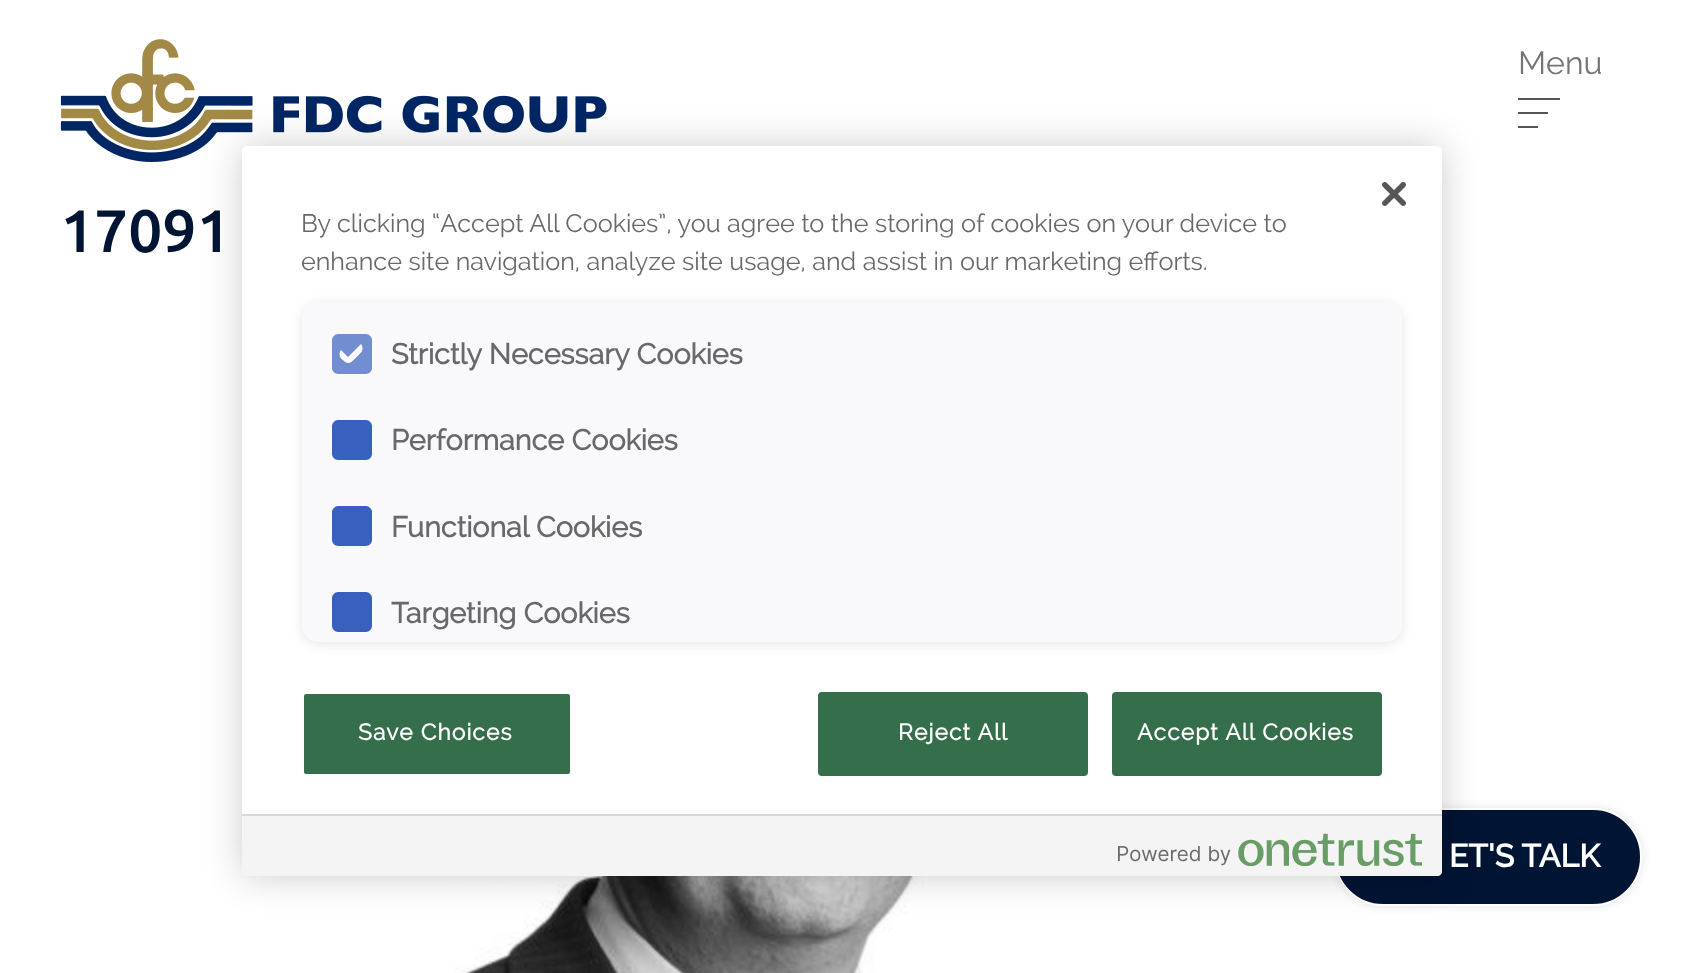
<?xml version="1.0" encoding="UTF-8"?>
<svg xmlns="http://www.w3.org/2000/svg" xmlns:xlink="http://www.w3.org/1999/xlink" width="1681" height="973">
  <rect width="100%" height="100%" fill="#ffffff" />
  <image x="60" y="39" width="547" height="123" xlink:href="image1.png" />
  <rect x="1518" y="98" width="42" height="2" fill="#555555" />
  <rect x="1518" y="112" width="30" height="2" fill="#555555" />
  <rect x="1518" y="126" width="20" height="2" fill="#555555" />
  <image x="453" y="876" width="520" height="97" xlink:href="image2.png" />
  <rect x="1334" y="808" width="308" height="98" rx="49" fill="#000000" fill-opacity="0.1" filter="blur(5px)" />
  <rect x="1335" y="809" width="306" height="96" rx="48" fill="#001433" stroke="#ffffff" stroke-width="2" />
  <rect x="242" y="146" width="1200" height="730" rx="5" fill="#000000" fill-opacity="0.2" filter="blur(18px)" />
  <rect x="242" y="146" width="1200" height="730" rx="5" fill="#ffffff" />
  <image x="1382" y="182" width="24" height="24" xlink:href="image3.png" />
  <rect x="302" y="304" width="1100" height="340" rx="16" fill="#000000" fill-opacity="0.1" filter="blur(6px)" />
  <rect x="302" y="302" width="1100" height="340" rx="16" fill="#f9f9fc" />
  <path d="M 338 334 h 28 c 3 0 6 3 6 6 v 28 c 0 3 -3 6 -6 6 h -28 c -3 0 -6 -3 -6 -6 v -28 c 0 -3 3 -6 6 -6 z" fill="#728ed1" />
  <path d="M 341 350 l 8.5 -8.5 c 2.5 -2.5 6 -2.5 8.5 0 l 3 2.5 c 2 2.5 2 6.5 0 8.5 l -8.5 8.5 c -2.5 2.5 -6 2.5 -8.5 0 l -3 -2.5 c -2 -2.5 -2 -6.5 0 -8.5 z m 0 0 l 8.5 -8.5 c 2.5 -2.5 6 -2.5 8.5 0 l 3 2.5 l -13 13 z" fill="#fdfdfe" fill-rule="evenodd" />
  <path d="M 338 420 h 28 c 3 0 6 3 6 6 v 28 c 0 3 -3 6 -6 6 h -28 c -3 0 -6 -3 -6 -6 v -28 c 0 -3 3 -6 6 -6 z" fill="#3860be" />
  <path d="M 338 506 h 28 c 3 0 6 3 6 6 v 28 c 0 3 -3 6 -6 6 h -28 c -3 0 -6 -3 -6 -6 v -28 c 0 -3 3 -6 6 -6 z" fill="#3860be" />
  <path d="M 338 592 h 28 c 3 0 6 3 6 6 v 28 c 0 3 -3 6 -6 6 h -28 c -3 0 -6 -3 -6 -6 v -28 c 0 -3 3 -6 6 -6 z" fill="#3860be" />
  <rect x="303" y="693" width="268" height="82" rx="3" fill="#346e4a" stroke="#ffffff" stroke-width="2" />
  <rect x="819" y="693" width="268" height="82" rx="3" fill="#346e4a" stroke="#346e4a" stroke-width="2" />
  <rect x="1113" y="693" width="268" height="82" rx="3" fill="#346e4a" stroke="#346e4a" stroke-width="2" />
  <path d="M 242 814 h 1200 v 57 c 0 3 -2 5 -5 5 h -1190 c -3 0 -5 -2 -5 -5 z" fill="#f4f4f4" />
  <rect x="242" y="814" width="1200" height="2" fill="#d8d8d8" />
  <image x="1118" y="833" width="304" height="34" xlink:href="image4.png" />
  <text x="1518" y="74" style="font-family: Raleway; font-size: 32px; fill: #757575">Menu</text>
  <text x="60" y="252" style="font-family: Ubuntu; font-size: 60px; font-weight: 500; fill: #001433">17091</text>
  <text x="301" y="232" style="font-family: Raleway; font-size: 25.2px; fill: #696969">By clicking “Accept All Cookies”, you agree to the storing of cookies on your device to</text>
  <text x="301" y="270" style="font-family: Raleway; font-size: 25.2px; fill: #696969">enhance site navigation, analyze site usage, and assist in our marketing efforts.</text>
  <text x="391" y="364" style="font-family: 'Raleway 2'; font-size: 28.75px; font-weight: bold; fill: #696969">Strictly Necessary Cookies</text>
  <text x="391" y="450" style="font-family: 'Raleway 2'; font-size: 28.75px; font-weight: bold; fill: #696969">Performance Cookies</text>
  <text x="391" y="537" style="font-family: 'Raleway 2'; font-size: 28.75px; font-weight: bold; fill: #696969">Functional Cookies</text>
  <text x="391" y="623" style="font-family: 'Raleway 2'; font-size: 28.75px; font-weight: bold; fill: #696969">Targeting Cookies</text>
  <text x="358" y="740" style="font-family: 'Raleway 2'; font-size: 22.75px; font-weight: bold; letter-spacing: 1.1px; fill: #ffffff">Save Choices</text>
  <text x="898" y="740" style="font-family: 'Raleway 2'; font-size: 22.75px; font-weight: bold; letter-spacing: 1.1px; fill: #ffffff">Reject All</text>
  <text x="1137" y="740" style="font-family: 'Raleway 2'; font-size: 22.75px; font-weight: bold; letter-spacing: 1.1px; fill: #ffffff">Accept All Cookies</text>
  <text x="1449" y="867" style="font-family: Raleway; font-size: 32px; font-weight: bold; fill: #ffffff">ET'S TALK</text>
</svg>
